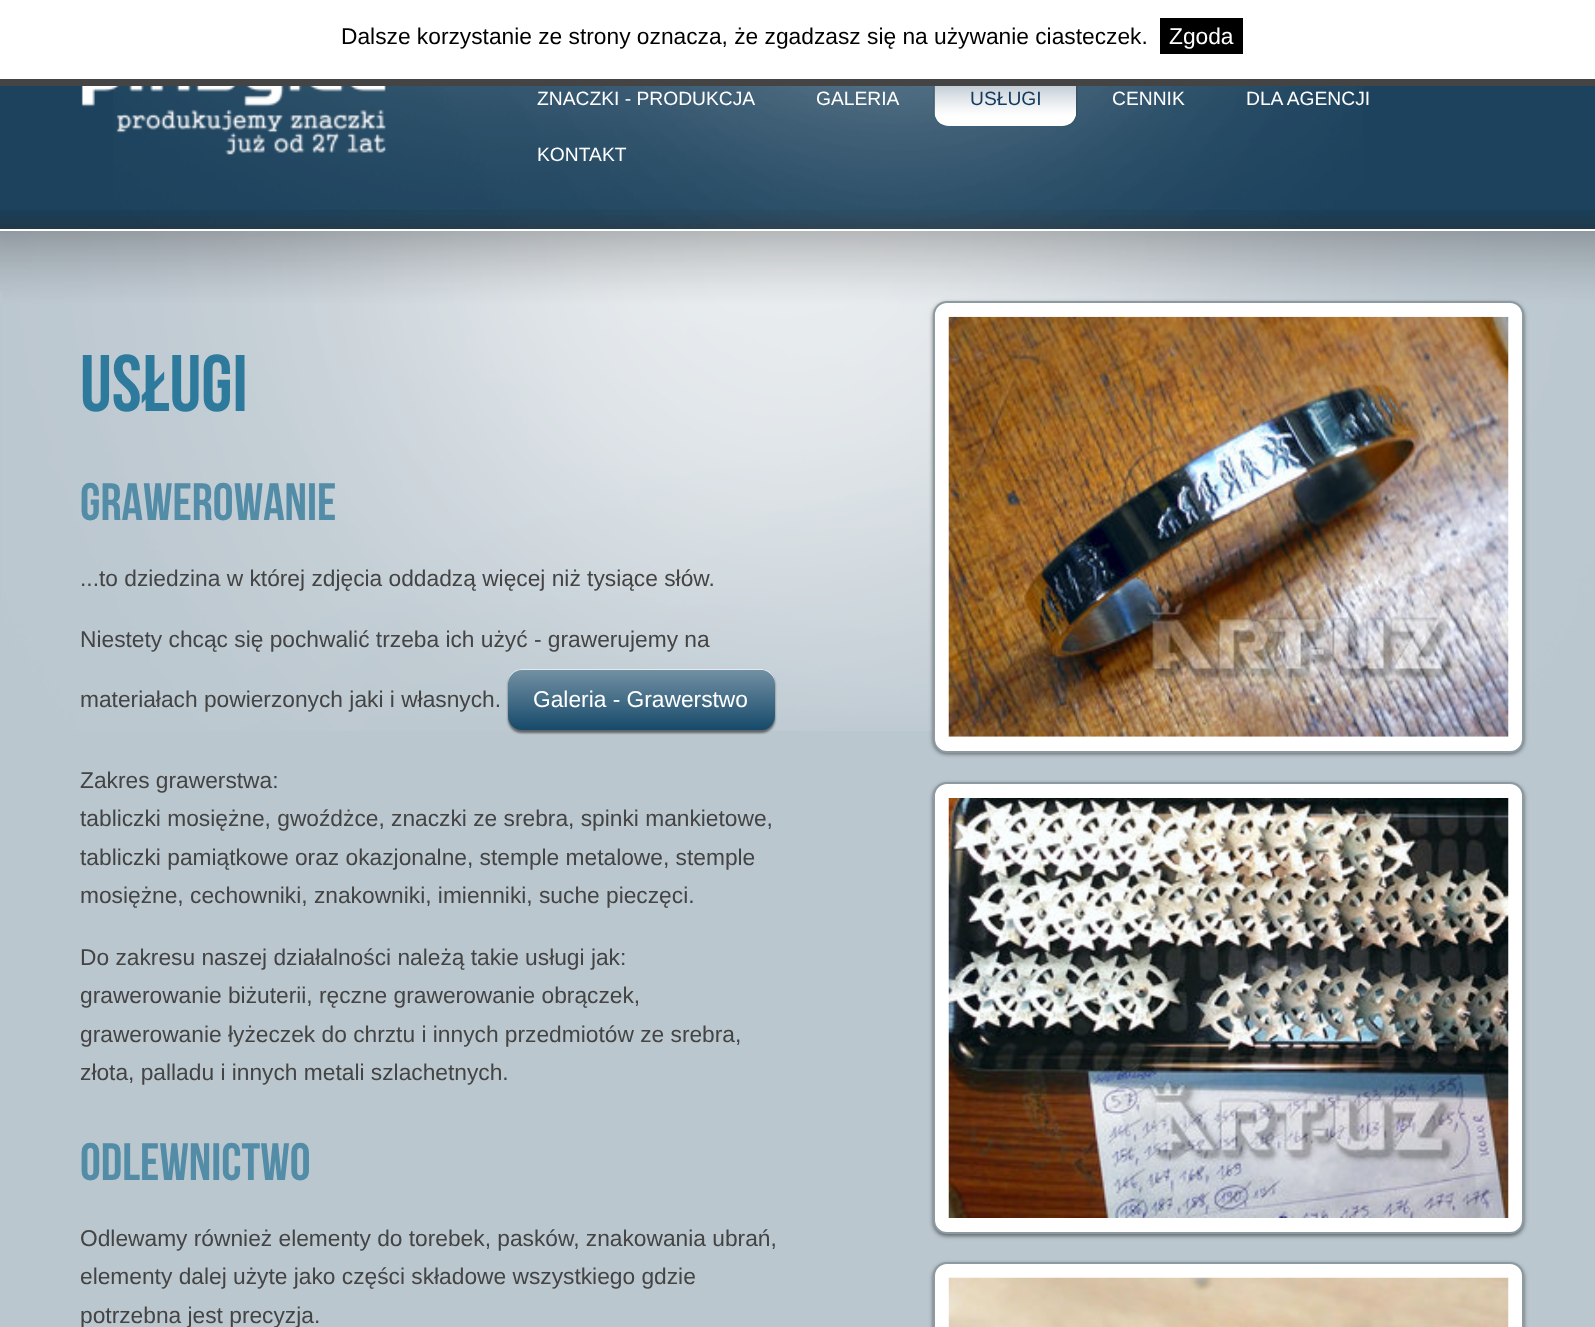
<?xml version="1.0" encoding="UTF-8"?>
<svg xmlns="http://www.w3.org/2000/svg" xmlns:xlink="http://www.w3.org/1999/xlink" width="1595" height="1327">
  <defs>
    <linearGradient id="g1" gradientUnits="userSpaceOnUse" x1="508" y1="669" x2="508" y2="730"><stop offset="0" stop-color="#7491a4" /><stop offset="1" stop-color="#164a6a" /></linearGradient>
  </defs>
  <rect width="100%" height="100%" fill="#1c425d" />
  <image x="0" y="210" width="1595" height="19" xlink:href="image1.png" />
  <image x="113" y="86" width="1250" height="143" xlink:href="image2.png" />
  <rect x="935" y="68" width="141" height="56" rx="14" fill="#000000" fill-opacity="0.7" filter="blur(1px)" />
  <rect x="935" y="70" width="141" height="56" rx="14" fill="#ffffff" />
  <rect width="1595" height="79" fill="#ffffff" />
  <rect y="79" width="1595" height="7" fill="#444444" />
  <rect x="1160" y="18" width="83" height="36" fill="#000000" />
  <rect y="229" width="1595" height="2" fill="#ffffff" />
  <image x="81" y="86" width="305" height="69" xlink:href="image3.png" />
  <image x="934" y="86" width="143" height="39" xlink:href="image4.png" />
  <rect y="292" width="1595" height="1035" fill="#bbc7cf" />
  <image x="0" y="231" width="2" height="61" xlink:href="image5.png" />
  <image x="2" y="231" width="1593" height="500" xlink:href="image6.png" />
  <rect x="508" y="672" width="267" height="61" rx="14" fill="#000000" fill-opacity="0.5" filter="blur(1px)" />
  <rect x="508" y="669" width="267" height="61" rx="14" fill="url(#g1)" />
  <path d="M 522 670 h 239 c 8 0 14 7 14 14 v -1 c 0 -8 -6 -14 -14 -14 h -239 c -8 0 -14 6 -14 14 v 1 c 0 -7 6 -14 14 -14 z" fill="#ffffff" fill-opacity="0.8" />
  <rect x="933" y="303" width="591" height="451" rx="14" fill="#000000" fill-opacity="0.5" filter="blur(2px)" />
  <rect x="934" y="302" width="589" height="450" rx="13" fill="#ffffff" stroke="#8d9aa2" stroke-width="2" />
  <image x="948" y="316" width="561" height="421" xlink:href="image7.png" />
  <rect x="933" y="784" width="591" height="452" rx="14" fill="#000000" fill-opacity="0.5" filter="blur(2px)" />
  <rect x="934" y="783" width="589" height="450" rx="13" fill="#ffffff" stroke="#8d9aa2" stroke-width="2" />
  <image x="948" y="798" width="561" height="420" xlink:href="image8.png" />
  <rect x="933" y="1264" width="591" height="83" rx="14" fill="#000000" fill-opacity="0.5" filter="blur(2px)" />
  <rect x="934" y="1263" width="589" height="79" rx="13" fill="#ffffff" stroke="#8d9aa2" stroke-width="2" />
  <image x="948" y="1277" width="561" height="50" xlink:href="image9.png" />
  <text x="341" y="44" style="font-family: Liberation Sans; font-size: 22.75px; fill: #000000">Dalsze korzystanie ze strony oznacza, że zgadzasz się na używanie ciasteczek.</text>
  <text x="1169" y="44" style="font-family: Liberation Sans; font-size: 22.75px; fill: #ffffff">Zgoda</text>
  <text x="537" y="105" style="font-family: Liberation Sans; font-size: 19.25px; fill: #ffffff">ZNACZKI - PRODUKCJA</text>
  <text x="816" y="105" style="font-family: Liberation Sans; font-size: 19.25px; fill: #ffffff">GALERIA</text>
  <text x="970" y="105" style="font-family: Liberation Sans; font-size: 19.25px; fill: #153c60">USŁUGI</text>
  <text x="1112" y="105" style="font-family: Liberation Sans; font-size: 19.25px; fill: #ffffff">CENNIK</text>
  <text x="1246" y="105" style="font-family: Liberation Sans; font-size: 19.25px; fill: #ffffff">DLA AGENCJI</text>
  <text x="537" y="161" style="font-family: Liberation Sans; font-size: 19.25px; fill: #ffffff">KONTAKT</text>
  <text x="80" y="411" style="font-family: Bebas Neue; font-size: 80px; fill: #2d7a9c">Usługi</text>
  <text x="80" y="520" style="font-family: Bebas Neue; font-size: 52.5px; fill: #528ca7">Grawerowanie</text>
  <text x="80" y="586" style="font-family: Liberation Sans; font-size: 22.75px; fill: #444444">...to dziedzina w której zdjęcia oddadzą więcej niż tysiące słów.</text>
  <text x="80" y="647" style="font-family: Liberation Sans; font-size: 22.75px; fill: #444444">Niestety chcąc się pochwalić trzeba ich użyć - grawerujemy na</text>
  <text x="80" y="707" style="font-family: Liberation Sans; font-size: 22.75px; fill: #444444">materiałach powierzonych jaki i własnych.</text>
  <text x="533" y="707" style="font-family: Liberation Sans; font-size: 22.75px; fill: #ffffff">Galeria - Grawerstwo</text>
  <text x="80" y="788" style="font-family: Liberation Sans; font-size: 22.75px; fill: #444444">Zakres grawerstwa:</text>
  <text x="80" y="826" style="font-family: Liberation Sans; font-size: 22.75px; fill: #444444">tabliczki mosiężne, gwoźdżce, znaczki ze srebra, spinki mankietowe,</text>
  <text x="80" y="865" style="font-family: Liberation Sans; font-size: 22.75px; fill: #444444">tabliczki pamiątkowe oraz okazjonalne, stemple metalowe, stemple</text>
  <text x="80" y="903" style="font-family: Liberation Sans; font-size: 22.75px; fill: #444444">mosiężne, cechowniki, znakowniki, imienniki, suche pieczęci.</text>
  <text x="80" y="965" style="font-family: Liberation Sans; font-size: 22.75px; fill: #444444">Do zakresu naszej działalności należą takie usługi jak:</text>
  <text x="80" y="1003" style="font-family: Liberation Sans; font-size: 22.75px; fill: #444444">grawerowanie biżuterii, ręczne grawerowanie obrączek,</text>
  <text x="80" y="1042" style="font-family: Liberation Sans; font-size: 22.75px; fill: #444444">grawerowanie łyżeczek do chrztu i innych przedmiotów ze srebra,</text>
  <text x="80" y="1080" style="font-family: Liberation Sans; font-size: 22.75px; fill: #444444">złota, palladu i innych metali szlachetnych.</text>
  <text x="80" y="1180" style="font-family: Bebas Neue; font-size: 52.5px; fill: #528ca7">Odlewnictwo</text>
  <text x="80" y="1246" style="font-family: Liberation Sans; font-size: 22.75px; fill: #444444">Odlewamy również elementy do torebek, pasków, znakowania ubrań,</text>
  <text x="80" y="1284" style="font-family: Liberation Sans; font-size: 22.75px; fill: #444444">elementy dalej użyte jako części składowe wszystkiego gdzie</text>
  <text x="80" y="1323" style="font-family: Liberation Sans; font-size: 22.75px; fill: #444444">potrzebna jest precyzja.</text>
</svg>
